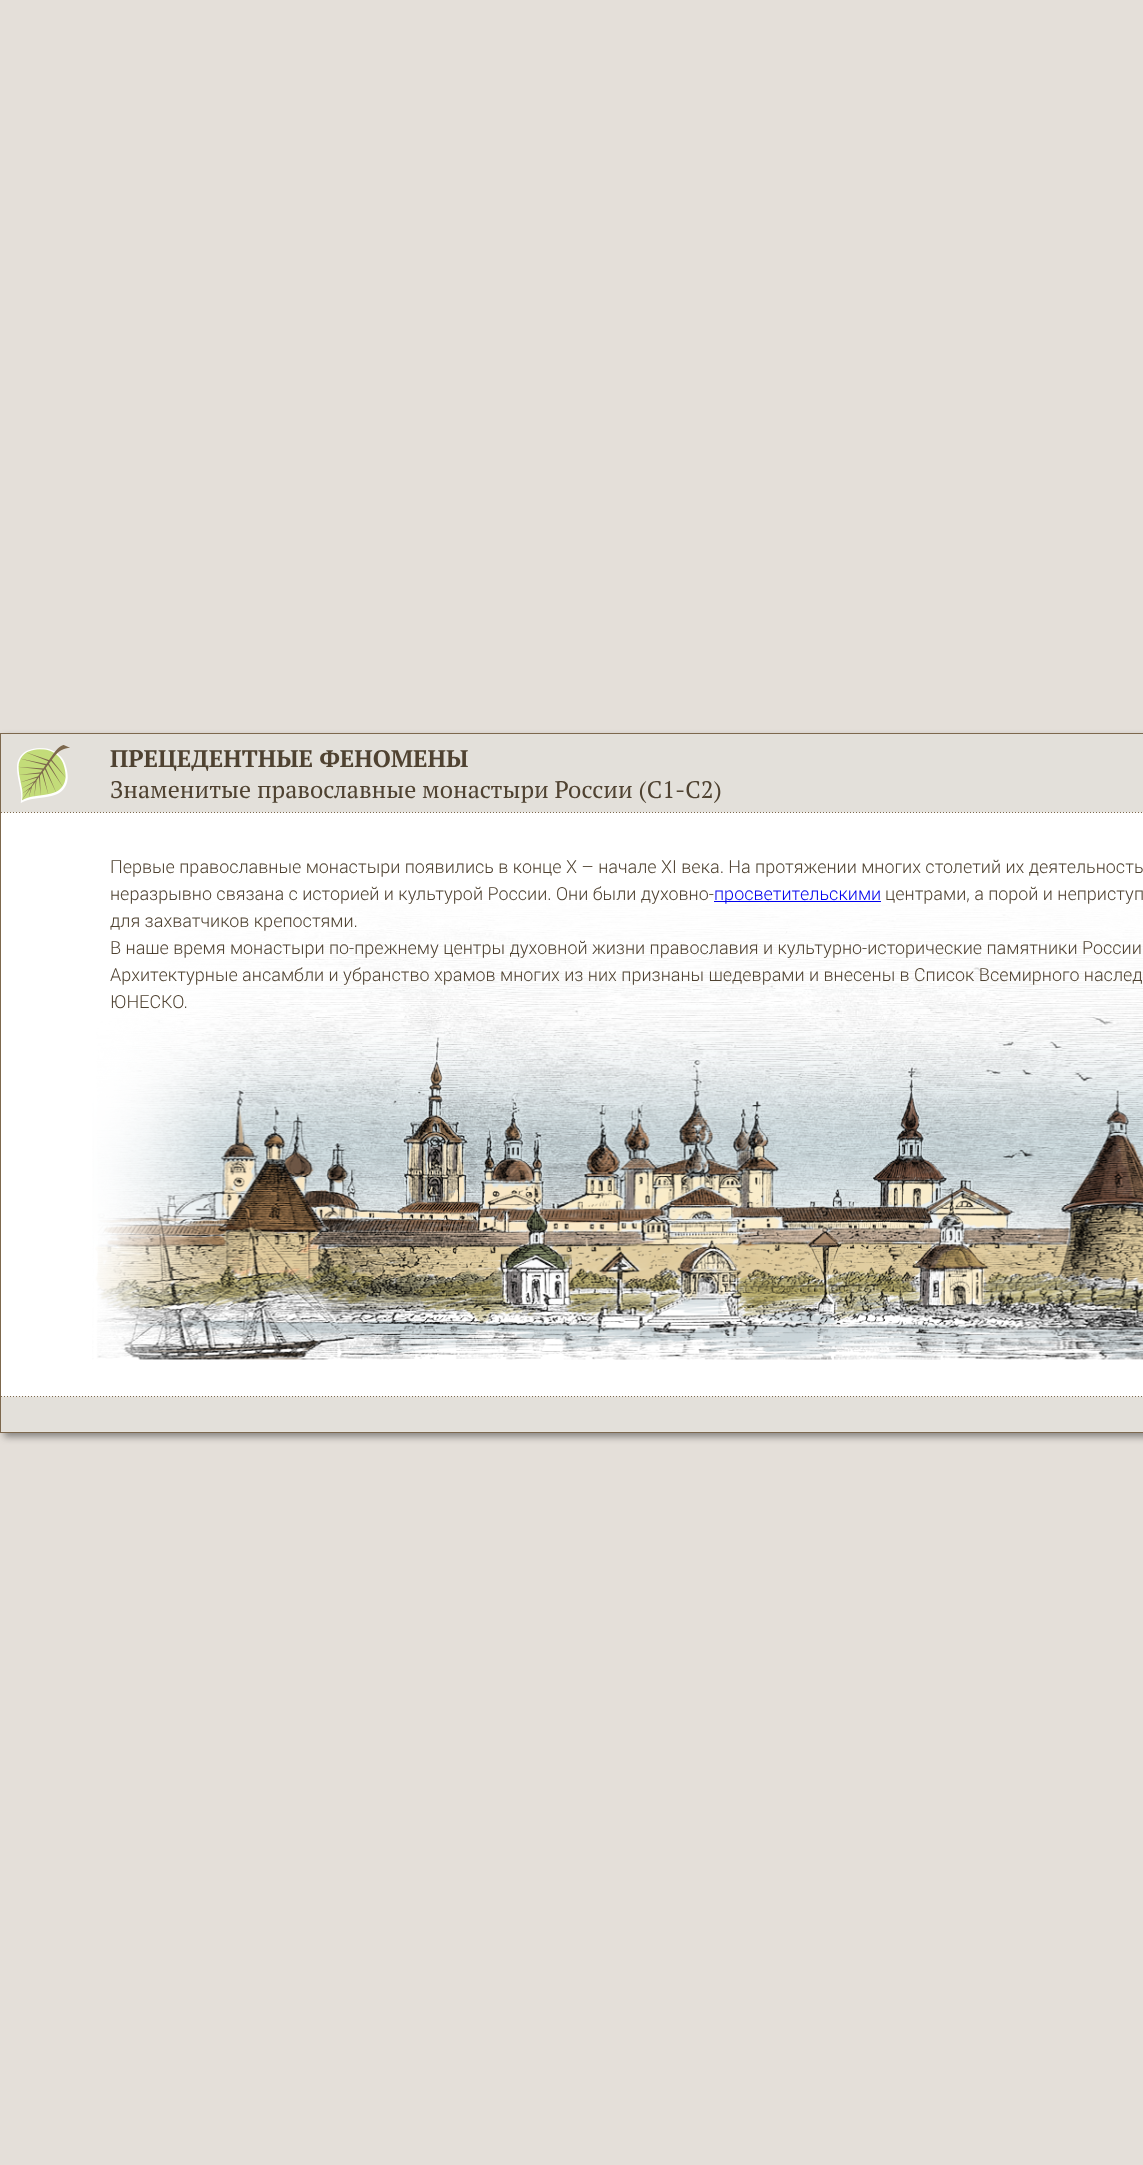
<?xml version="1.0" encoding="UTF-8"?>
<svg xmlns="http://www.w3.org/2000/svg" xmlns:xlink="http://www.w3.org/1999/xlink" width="1143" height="2165">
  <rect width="100%" height="100%" fill="#e4dfd9" />
  <rect x="4" y="737" width="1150" height="700" fill="#323232" fill-opacity="0.5" filter="blur(3.5px)" />
  <image x="0" y="733" width="1143" height="700" xlink:href="image1.png" />
  <image x="17" y="745" width="53" height="58" xlink:href="image2.png" />
  <image x="92" y="900" width="1051" height="460" xlink:href="image3.png" />
  <rect x="714" y="901" width="167" height="1" fill="#0000ee" />
  <text x="110" y="767" style="font-family: PT Serif; font-size: 24px; font-weight: bold; fill: #4f4231">ПРЕЦЕДЕНТНЫЕ ФЕНОМЕНЫ</text>
  <text x="110" y="798" style="font-family: PT Serif; font-size: 24px; fill: #4f4231">Знаменитые православные монастыри России (С1-С2)</text>
  <text x="110" y="873" style="font-family: Roboto; font-size: 18px; font-weight: 300; fill: #4f4231">Первые православные монастыри появились в конце X – начале XI века. На протяжении многих столетий их деятельность</text>
  <text x="110" y="900" style="font-family: Roboto; font-size: 18px; font-weight: 300; fill: #4f4231">неразрывно связана с историей и культурой России. Они были духовно-</text>
  <text x="714" y="900" style="font-family: Roboto; font-size: 18px; font-weight: 300; fill: #0000ee">просветительскими</text>
  <text x="885" y="900" style="font-family: Roboto; font-size: 18px; font-weight: 300; fill: #4f4231">центрами, а порой и неприступ</text>
  <text x="110" y="927" style="font-family: Roboto; font-size: 18px; font-weight: 300; fill: #4f4231">для захватчиков крепостями.</text>
  <text x="110" y="954" style="font-family: Roboto; font-size: 18px; font-weight: 300; fill: #4f4231">В наше время монастыри по-прежнему центры духовной жизни православия и культурно-исторические памятники России</text>
  <text x="110" y="981" style="font-family: Roboto; font-size: 18px; font-weight: 300; fill: #4f4231">Архитектурные ансамбли и убранство храмов многих из них признаны шедеврами и внесены в Список Всемирного наслед</text>
  <text x="110" y="1008" style="font-family: Roboto; font-size: 18px; font-weight: 300; fill: #4f4231">ЮНЕСКО.</text>
</svg>
